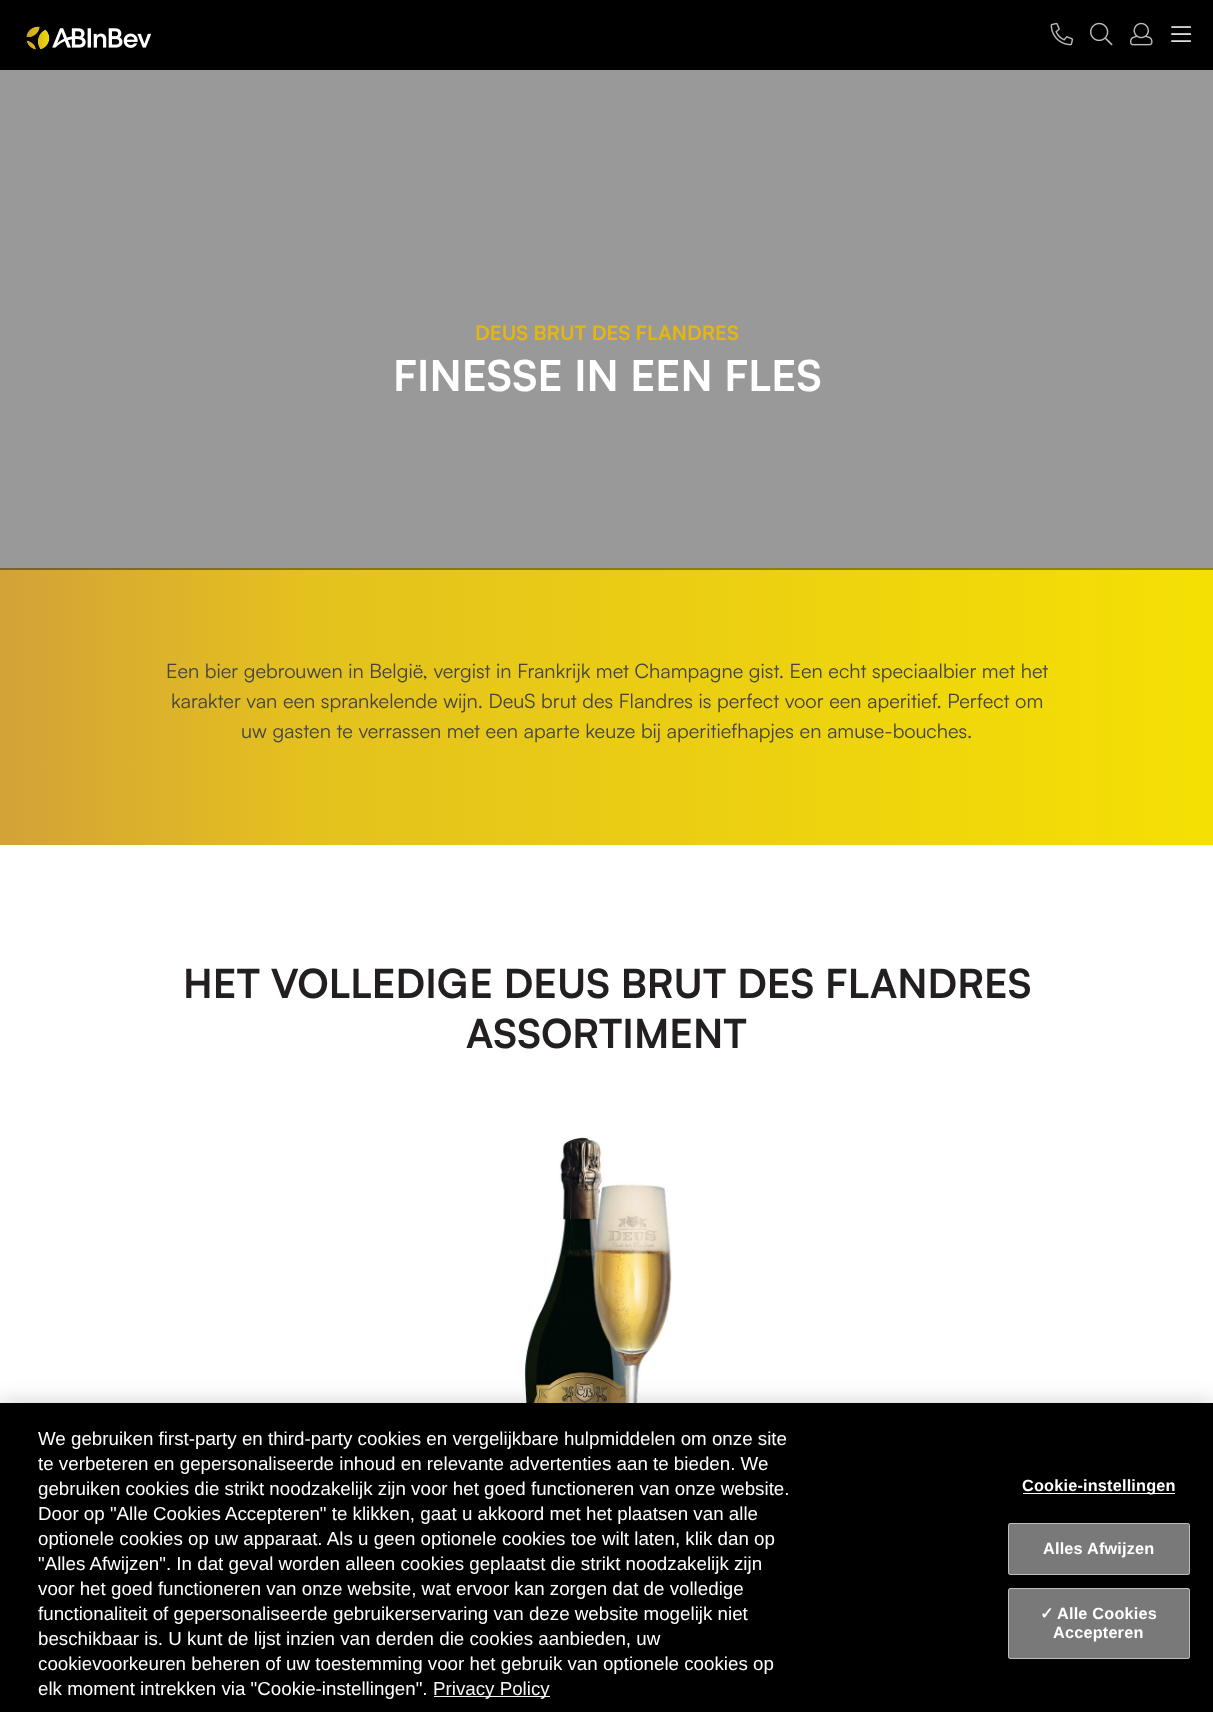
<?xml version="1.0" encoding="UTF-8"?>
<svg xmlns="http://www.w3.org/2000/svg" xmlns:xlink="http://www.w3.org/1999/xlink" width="1213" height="1712">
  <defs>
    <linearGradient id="g1" gradientUnits="userSpaceOnUse" x1="0" y1="706" x2="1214" y2="706"><stop offset="0" stop-color="#d3a238" /><stop offset="0.25" stop-color="#e4c11e" /><stop offset="1" stop-color="#f5e003" /></linearGradient>
    <linearGradient id="g2" gradientUnits="userSpaceOnUse" x1="0" y1="706" x2="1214" y2="706"><stop offset="0" stop-color="#7f6122" /><stop offset="0.25" stop-color="#897412" /><stop offset="1" stop-color="#938602" /></linearGradient>
  </defs>
  <rect width="100%" height="100%" fill="#ffffff" />
  <rect y="70" width="1213" height="498" fill="#999999" />
  <rect width="1213" height="70" fill="#000000" />
  <image x="26" y="26" width="125" height="24" xlink:href="image1.png" />
  <image x="1050" y="22" width="24" height="24" xlink:href="image2.png" />
  <image x="1090" y="22" width="23" height="24" xlink:href="image3.png" />
  <image x="1130" y="22" width="23" height="24" xlink:href="image4.png" />
  <image x="1171" y="26" width="20" height="16" xlink:href="image5.png" />
  <rect y="570" width="1213" height="275" fill="url(#g1)" />
  <rect y="568" width="1213" height="2" fill="url(#g2)" />
  <image x="524" y="1137" width="155" height="266" xlink:href="image6.png" />
  <rect y="1403" width="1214" height="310" fill="#000000" fill-opacity="0.2" filter="blur(11px)" />
  <rect y="1403" width="1213" height="309" fill="#000000" />
  <rect x="434" y="1696" width="116" height="1" fill="#f5f5f5" />
  <rect x="1023" y="1493" width="152" height="1" fill="#ffffff" />
  <rect x="1008" y="1523" width="182" height="52" rx="2.5" fill="#797979" />
  <rect x="1008.5" y="1523.5" width="181" height="51" rx="2" fill="none" stroke="#ffffff" stroke-opacity="0.5" />
  <rect x="1008" y="1588" width="182" height="71" rx="2.5" fill="#797979" />
  <rect x="1008.5" y="1588.5" width="181" height="70" rx="2" fill="none" stroke="#ffffff" stroke-opacity="0.5" />
  <text x="475" y="340" style="font-family: Satoshi; font-size: 20px; font-weight: bold; fill: #e5b611">DEUS BRUT DES FLANDRES</text>
  <text x="393" y="391" style="font-family: Satoshi; font-size: 42.5px; font-weight: bold; fill: #ffffff">FINESSE IN EEN FLES</text>
  <text x="166" y="678" style="font-family: Satoshi; font-size: 20px; fill: #444444">Een bier gebrouwen in België, vergist in Frankrijk met Champagne gist. Een echt speciaalbier met het</text>
  <text x="171" y="708" style="font-family: Satoshi; font-size: 20px; fill: #444444">karakter van een sprankelende wijn. DeuS brut des Flandres is perfect voor een aperitief. Perfect om</text>
  <text x="241" y="738" style="font-family: Satoshi; font-size: 20px; fill: #444444">uw gasten te verrassen met een aparte keuze bij aperitiefhapjes en amuse-bouches.</text>
  <text x="183" y="998" style="font-family: Satoshi; font-size: 40px; font-weight: bold; fill: #231f20">HET VOLLEDIGE DEUS BRUT DES FLANDRES</text>
  <text x="466" y="1048" style="font-family: Satoshi; font-size: 40px; font-weight: bold; fill: #231f20">ASSORTIMENT</text>
  <text x="38" y="1445" style="font-family: Liberation Sans; font-size: 18.75px; fill: #ffffff">We gebruiken first-party en third-party cookies en vergelijkbare hulpmiddelen om onze site</text>
  <text x="38" y="1470" style="font-family: Liberation Sans; font-size: 18.75px; fill: #ffffff">te verbeteren en gepersonaliseerde inhoud en relevante advertenties aan te bieden. We</text>
  <text x="38" y="1495" style="font-family: Liberation Sans; font-size: 18.75px; fill: #ffffff">gebruiken cookies die strikt noodzakelijk zijn voor het goed functioneren van onze website.</text>
  <text x="38" y="1520" style="font-family: Liberation Sans; font-size: 18.75px; fill: #ffffff">Door op "Alle Cookies Accepteren" te klikken, gaat u akkoord met het plaatsen van alle</text>
  <text x="38" y="1545" style="font-family: Liberation Sans; font-size: 18.75px; fill: #ffffff">optionele cookies op uw apparaat. Als u geen optionele cookies toe wilt laten, klik dan op</text>
  <text x="38" y="1570" style="font-family: Liberation Sans; font-size: 18.75px; fill: #ffffff">"Alles Afwijzen". In dat geval worden alleen cookies geplaatst die strikt noodzakelijk zijn</text>
  <text x="38" y="1595" style="font-family: Liberation Sans; font-size: 18.75px; fill: #ffffff">voor het goed functioneren van onze website, wat ervoor kan zorgen dat de volledige</text>
  <text x="38" y="1620" style="font-family: Liberation Sans; font-size: 18.75px; fill: #ffffff">functionaliteit of gepersonaliseerde gebruikerservaring van deze website mogelijk niet</text>
  <text x="38" y="1645" style="font-family: Liberation Sans; font-size: 18.75px; fill: #ffffff">beschikbaar is. U kunt de lijst inzien van derden die cookies aanbieden, uw</text>
  <text x="38" y="1670" style="font-family: Liberation Sans; font-size: 18.75px; fill: #ffffff">cookievoorkeuren beheren of uw toestemming voor het gebruik van optionele cookies op</text>
  <text x="38" y="1695" style="font-family: Liberation Sans; font-size: 18.75px; fill: #ffffff">elk moment intrekken via "Cookie-instellingen".</text>
  <text x="433" y="1695" style="font-family: Liberation Sans; font-size: 18.75px; fill: #f5f5f5">Privacy Policy</text>
  <text x="1022" y="1491" style="font-family: Liberation Sans; font-size: 16.25px; font-weight: bold; letter-spacing: 0.2px; fill: #ffffff">Cookie-instellingen</text>
  <text x="1043" y="1554" style="font-family: Liberation Sans; font-size: 16.25px; font-weight: bold; letter-spacing: 0.2px; fill: #ffffff">Alles Afwijzen</text>
  <text x="1040" y="1619" style="font-family: DejaVu Sans; font-size: 16.25px; font-weight: bold; letter-spacing: 0.2px; fill: #ffffff">✓</text>
  <text x="1057" y="1619" style="font-family: Liberation Sans; font-size: 16.25px; font-weight: bold; letter-spacing: 0.2px; fill: #ffffff">Alle Cookies</text>
  <text x="1053" y="1638" style="font-family: Liberation Sans; font-size: 16.25px; font-weight: bold; letter-spacing: 0.2px; fill: #ffffff">Accepteren</text>
</svg>
